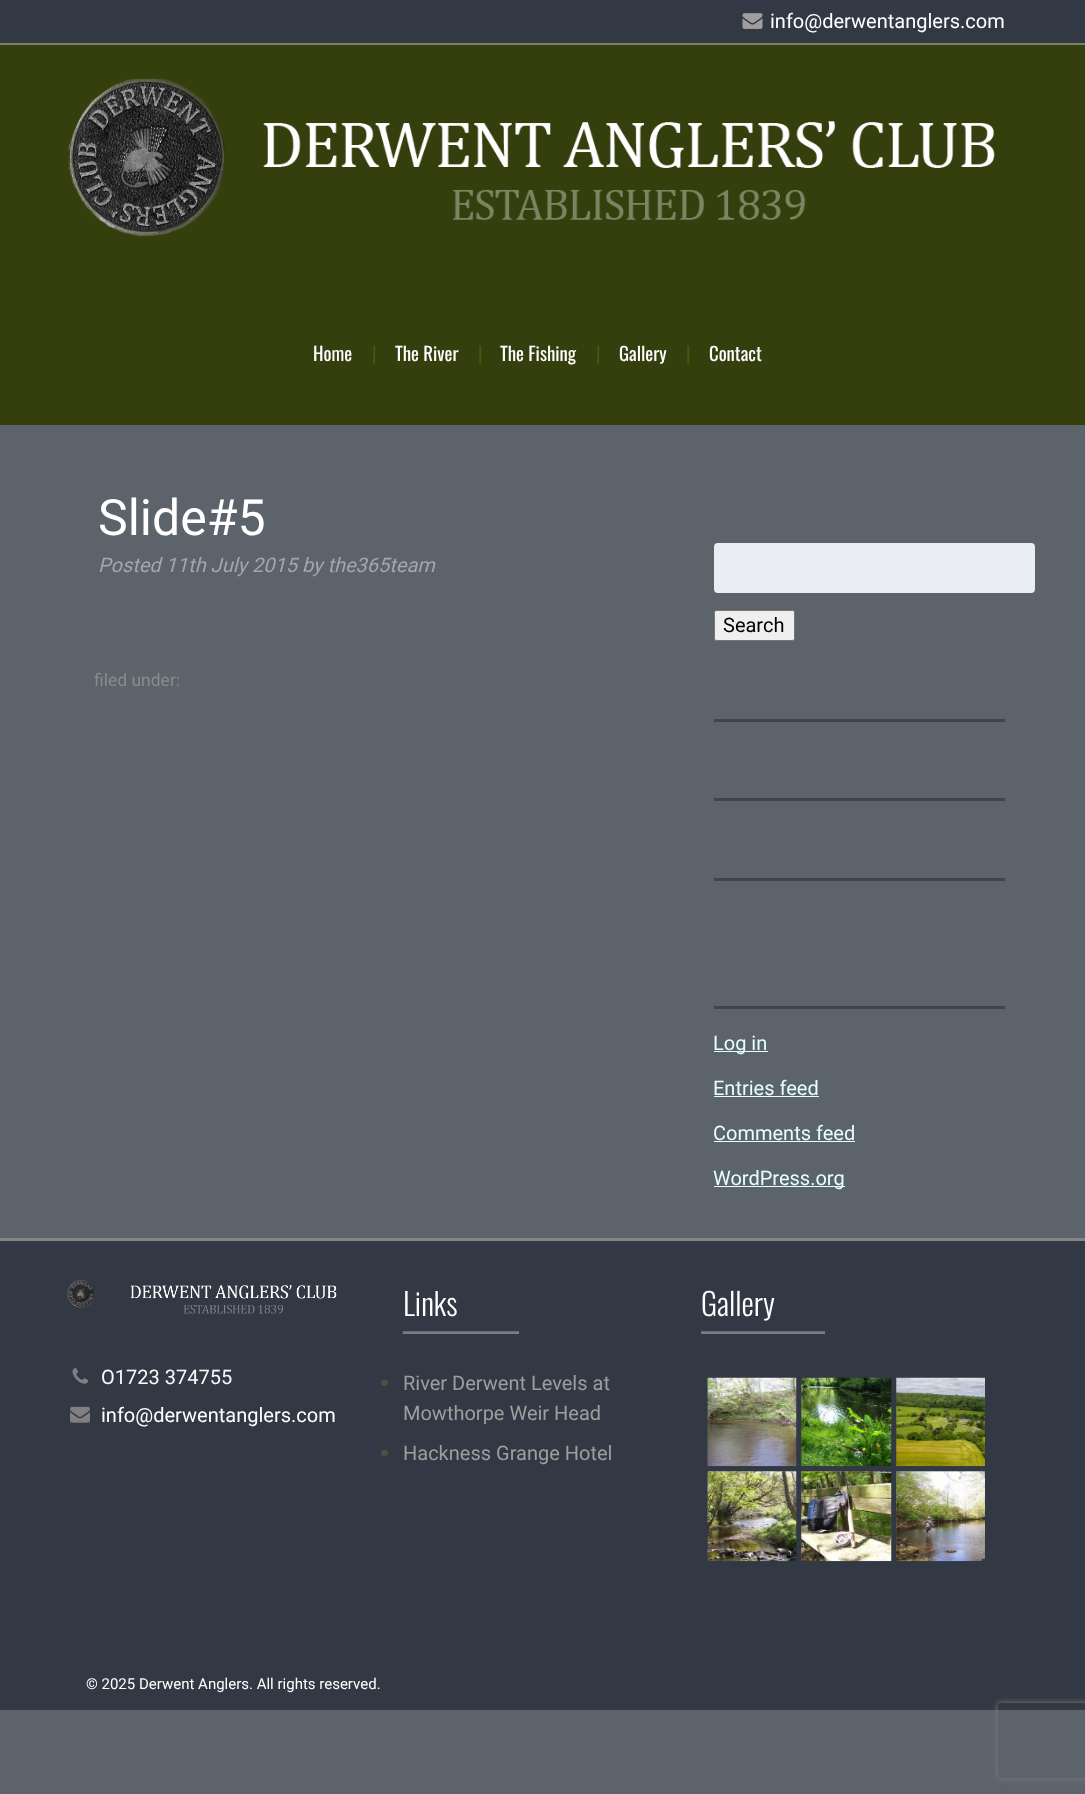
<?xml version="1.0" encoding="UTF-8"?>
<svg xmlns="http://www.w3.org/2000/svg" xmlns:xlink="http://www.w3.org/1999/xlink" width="1085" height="1794">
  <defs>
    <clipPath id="clip1"><path d="M 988 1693 h 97 v 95 h -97 z m 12.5 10 h 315 c 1.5 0 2.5 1 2.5 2.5 v 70 c 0 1.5 -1 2.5 -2.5 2.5 h -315 c -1.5 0 -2.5 -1 -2.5 -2.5 v -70 c 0 -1.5 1 -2.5 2.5 -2.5 z" clip-rule="evenodd" /></clipPath>
  </defs>
  <rect width="100%" height="100%" fill="#5d636b" />
  <rect width="1085" height="43" fill="#323944" />
  <rect y="43" width="1085" height="2" fill="#7a8160" />
  <image x="742" y="13" width="21" height="16" xlink:href="image1.png" />
  <rect y="45" width="1085" height="380" fill="#343f0d" />
  <image x="68" y="78" width="158" height="159" xlink:href="image2.png" />
  <image x="263" y="121" width="732" height="99" xlink:href="image3.png" />
  <rect x="714" y="543" width="321" height="50" rx="4" fill="#eaedf2" />
  <rect x="714.5" y="610.5" width="80" height="30" rx="2" fill="#efefef" stroke="#767676" />
  <rect x="714" y="719" width="291" height="3" fill="#444444" />
  <rect x="714" y="798" width="291" height="3" fill="#444444" />
  <rect x="714" y="878" width="291" height="3" fill="#444444" />
  <rect x="714" y="1006" width="291" height="3" fill="#444444" />
  <rect x="714" y="1051" width="54" height="1" fill="#e5ffff" />
  <rect x="714" y="1096" width="105" height="1" fill="#e5ffff" />
  <rect x="714" y="1141" width="141" height="1" fill="#e5ffff" />
  <rect x="714" y="1186" width="131" height="1" fill="#e5ffff" />
  <rect y="1241" width="1085" height="469" fill="#323944" />
  <rect y="1238" width="1085" height="3" fill="#848484" />
  <rect x="403" y="1331" width="116" height="3" fill="#595c64" />
  <path d="M 402 1331 h 117 l -1 1 h -114 z" fill="#696c72" />
  <path d="M 519 1331 v 3 l -1.5 -1.5 z" fill="#ffffff" fill-opacity="0.2" />
  <path d="M 519 1334 h -117 l 2 -2 h 114 z" fill="#ffffff" fill-opacity="0.2" />
  <path d="M 402.5 1334 v -3 l 1.5 1.5 z" fill="#aaaaaa" fill-opacity="0.2" />
  <rect x="381" y="1380" width="7" height="6" rx="3" fill="#4b5042" />
  <rect x="381" y="1450" width="7" height="6" rx="3" fill="#4b5042" />
  <rect x="701" y="1331" width="124" height="3" fill="#595c64" />
  <path d="M 701 1331 h 124 l -1 1 h -122 z" fill="#696c72" />
  <path d="M 825 1331 v 3 l -1 -1.5 z" fill="#7a7d83" />
  <path d="M 825 1334 h -124 l 1 -2 h 122 z" fill="#ffffff" fill-opacity="0.2" />
  <path d="M 701 1334 v -3 l 1.5 1.5 z" fill="#aaaaaa" fill-opacity="0.2" />
  <image x="707" y="1377" width="90" height="90" xlink:href="image4.png" />
  <image x="801" y="1377" width="91" height="90" xlink:href="image5.png" />
  <image x="896" y="1377" width="89" height="90" xlink:href="image6.png" />
  <rect x="708" y="1471" width="88" height="1" fill="#70747c" />
  <image x="707" y="1471" width="90" height="91" xlink:href="image7.png" />
  <rect x="801" y="1471" width="90" height="90" fill="#70747c" />
  <image x="801" y="1471" width="91" height="91" xlink:href="image8.png" />
  <rect x="896" y="1471" width="89" height="90" fill="#70747c" />
  <image x="896" y="1471" width="89" height="91" xlink:href="image9.png" />
  <image x="67" y="1280" width="28" height="28" xlink:href="image10.png" />
  <image x="130" y="1285" width="207" height="29" xlink:href="image11.png" />
  <image x="72" y="1368" width="17" height="16" xlink:href="image12.png" />
  <image x="70" y="1406" width="20" height="17" xlink:href="image13.png" />
  <g clip-path="url(#clip1)">
    <rect x="998" y="1703" width="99" height="75" rx="2.5" fill="#808080" filter="blur(3px)" />
  </g>
  <text x="770" y="28" style="font-family: Roboto; font-size: 20px; fill: #ffffff">info@derwentanglers.com</text>
  <text x="313" y="361" style="font-family: Oswald; font-size: 18.75px; fill: #ffffff">Home</text>
  <text x="372" y="361" style="font-family: Oswald; font-size: 18.75px; fill: #485909">|</text>
  <text x="395" y="361" style="font-family: Oswald; font-size: 18.75px; fill: #ffffff">The River</text>
  <text x="478" y="361" style="font-family: Oswald; font-size: 18.75px; fill: #485909">|</text>
  <text x="500" y="361" style="font-family: Oswald; font-size: 18.75px; fill: #ffffff">The Fishing</text>
  <text x="596" y="361" style="font-family: Oswald; font-size: 18.75px; fill: #485909">|</text>
  <text x="619" y="361" style="font-family: Oswald; font-size: 18.75px; fill: #ffffff">Gallery</text>
  <text x="686" y="361" style="font-family: Oswald; font-size: 18.75px; fill: #485909">|</text>
  <text x="709" y="361" style="font-family: Oswald; font-size: 18.75px; fill: #ffffff">Contact</text>
  <text x="98" y="535" style="font-family: Roboto; font-size: 50px; fill: #ffffff">Slide#5</text>
  <text x="98" y="572" style="font-family: Roboto; font-size: 20px; font-style: italic; fill: #9fa6b4">Posted 11th July 2015 by the365team</text>
  <text x="94" y="686" style="font-family: Roboto; font-size: 17.5px; fill: #8b8b8b">filed under:</text>
  <text x="723" y="632" style="font-family: Roboto; font-size: 20px; fill: #000000">Search</text>
  <text x="713" y="1050" style="font-family: Roboto; font-size: 20px; fill: #e5ffff">Log in</text>
  <text x="713" y="1095" style="font-family: Roboto; font-size: 20px; fill: #e5ffff">Entries feed</text>
  <text x="713" y="1140" style="font-family: Roboto; font-size: 20px; fill: #e5ffff">Comments feed</text>
  <text x="713" y="1185" style="font-family: Roboto; font-size: 20px; fill: #e5ffff">WordPress.org</text>
  <text x="403" y="1316" style="font-family: Oswald; font-size: 31px; font-weight: 300; fill: #ffffff">Links</text>
  <text x="403" y="1390" style="font-family: Roboto; font-size: 20px; fill: #9e9e9e">River Derwent Levels at</text>
  <text x="403" y="1420" style="font-family: Roboto; font-size: 20px; fill: #9e9e9e">Mowthorpe Weir Head</text>
  <text x="403" y="1460" style="font-family: Roboto; font-size: 20px; fill: #9e9e9e">Hackness Grange Hotel</text>
  <text x="701" y="1316" style="font-family: Oswald; font-size: 31px; font-weight: 300; fill: #ffffff">Gallery</text>
  <text x="101" y="1384" style="font-family: Roboto; font-size: 20px; fill: #f8f9fa">O1723 374755</text>
  <text x="101" y="1422" style="font-family: Roboto; font-size: 20px; fill: #ffffff">info@derwentanglers.com</text>
  <text x="86" y="1689" style="font-family: Roboto; font-size: 15px; fill: #ffffff">© 2025 Derwent Anglers. All rights reserved.</text>
</svg>
